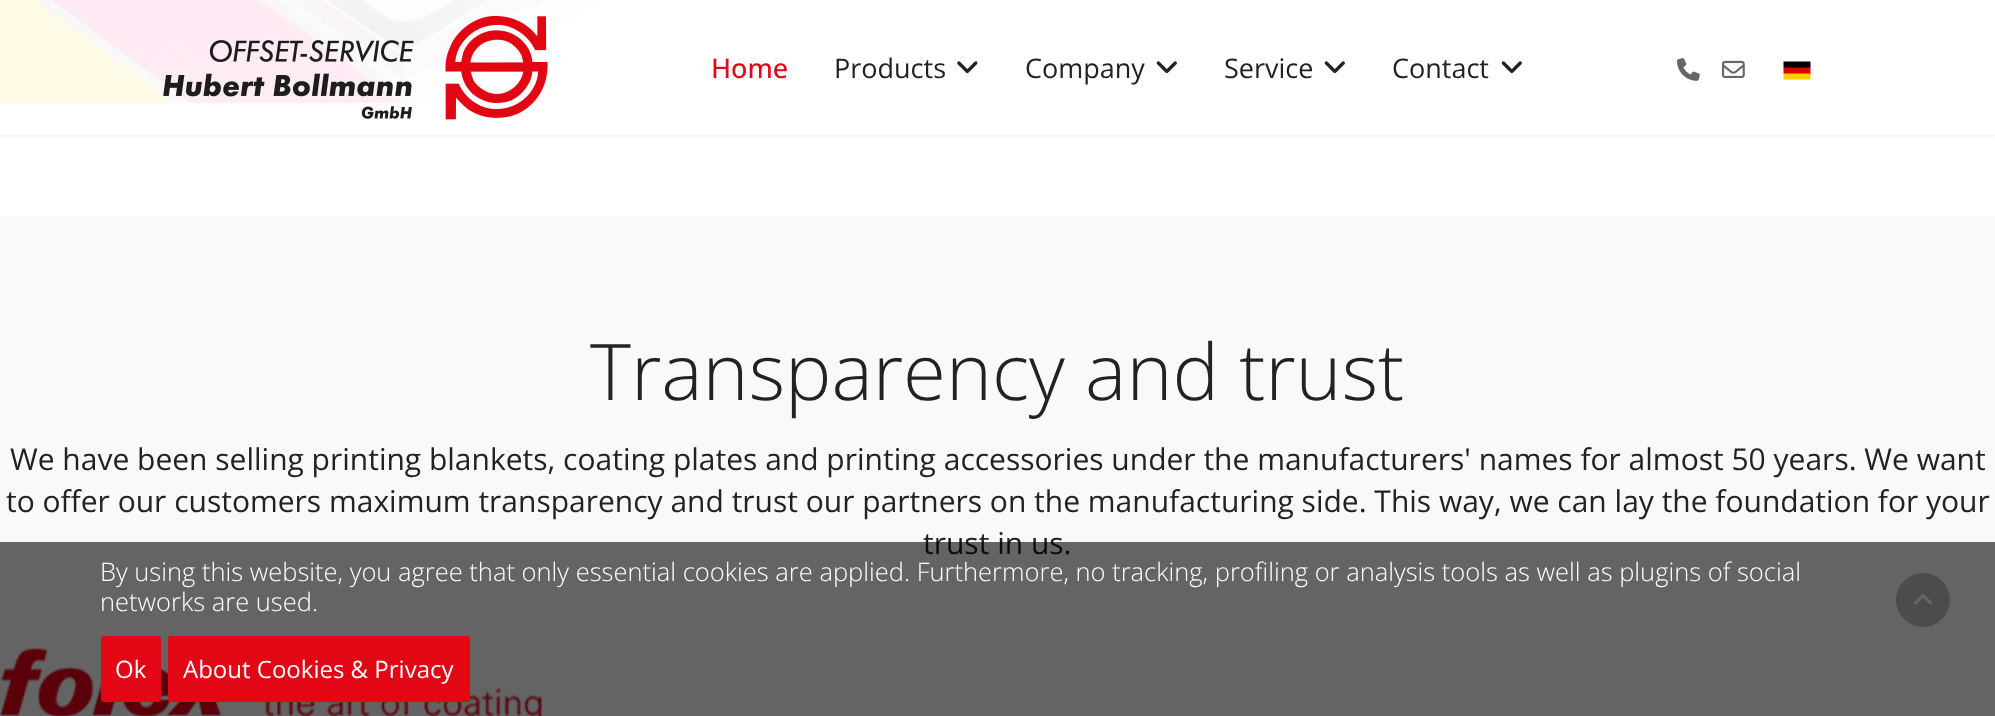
<?xml version="1.0" encoding="UTF-8"?>
<svg xmlns="http://www.w3.org/2000/svg" xmlns:xlink="http://www.w3.org/1999/xlink" width="1995" height="716">
  <defs>
    <clipPath id="clip1"><rect x="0" y="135" width="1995" height="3" /></clipPath>
  </defs>
  <rect width="100%" height="100%" fill="#ffffff" />
  <image x="0" y="0" width="602" height="104" xlink:href="image7.png" />
  <g clip-path="url(#clip1)">
    <rect width="1995" height="135" fill="#000000" fill-opacity="0.1" filter="blur(3px)" />
  </g>
  <image x="163" y="16" width="385" height="104" xlink:href="image1.png" />
  <image x="957" y="61" width="21" height="13" xlink:href="image2.png" />
  <image x="1156" y="61" width="21" height="13" xlink:href="image3.png" />
  <image x="1324" y="61" width="21" height="13" xlink:href="image3.png" />
  <image x="1501" y="61" width="21" height="13" xlink:href="image3.png" />
  <image x="1677" y="58" width="23" height="23" xlink:href="image4.png" />
  <image x="1722" y="60" width="23" height="18" xlink:href="image5.png" />
  <image x="1783" y="61" width="28" height="19" xlink:href="image6.png" />
  <rect y="216" width="1995" height="500" fill="#f9f9f9" />
  <image x="0" y="647" width="543" height="69" xlink:href="image8.png" />
  <circle cx="1923" cy="600" r="27" fill="#bdbdbd" />
  <image x="1914" y="594" width="18" height="11" xlink:href="image9.png" />
  <text x="711" y="78" style="font-family: Open Sans; font-size: 27px; font-weight: 500; fill: #e30614">Home</text>
  <text x="834" y="78" style="font-family: Open Sans; font-size: 27px; fill: #222222">Products</text>
  <text x="1025" y="78" style="font-family: Open Sans; font-size: 27px; fill: #222222">Company</text>
  <text x="1224" y="78" style="font-family: Open Sans; font-size: 27px; fill: #222222">Service</text>
  <text x="1392" y="78" style="font-family: Open Sans; font-size: 27px; fill: #222222">Contact</text>
  <text x="590" y="400" style="font-family: Open Sans; font-size: 78px; font-weight: 300; fill: #222222">Transparency and trust</text>
  <text x="10" y="470" style="font-family: Open Sans; font-size: 30px; fill: #222222">We have been selling printing blankets, coating plates and printing accessories under the manufacturers' names for almost 50 years. We want</text>
  <text x="6" y="512" style="font-family: Open Sans; font-size: 30px; fill: #222222">to offer our customers maximum transparency and trust our partners on the manufacturing side. This way, we can lay the foundation for your</text>
  <text x="923" y="554" style="font-family: Open Sans; font-size: 30px; fill: #222222">trust in us.</text>
  <rect y="542" width="1995" height="174" fill="#000000" fill-opacity="0.6" />
  <text x="100" y="581" style="font-family: Open Sans; font-size: 25.5px; font-weight: 300; fill: #ffffff">By using this website, you agree that only essential cookies are applied. Furthermore, no tracking, profiling or analysis tools as well as plugins of social</text>
  <text x="100" y="611" style="font-family: Open Sans; font-size: 25.5px; font-weight: 300; fill: #ffffff">networks are used.</text>
  <rect x="101" y="636" width="60" height="66" rx="3" fill="#e30614" />
  <text x="115" y="678" style="font-family: Open Sans; font-size: 24px; fill: #ffffff">Ok</text>
  <rect x="168" y="636" width="302" height="66" rx="3" fill="#e30614" />
  <text x="183" y="678" style="font-family: Open Sans; font-size: 24px; fill: #ffffff">About Cookies &amp; Privacy</text>
</svg>
